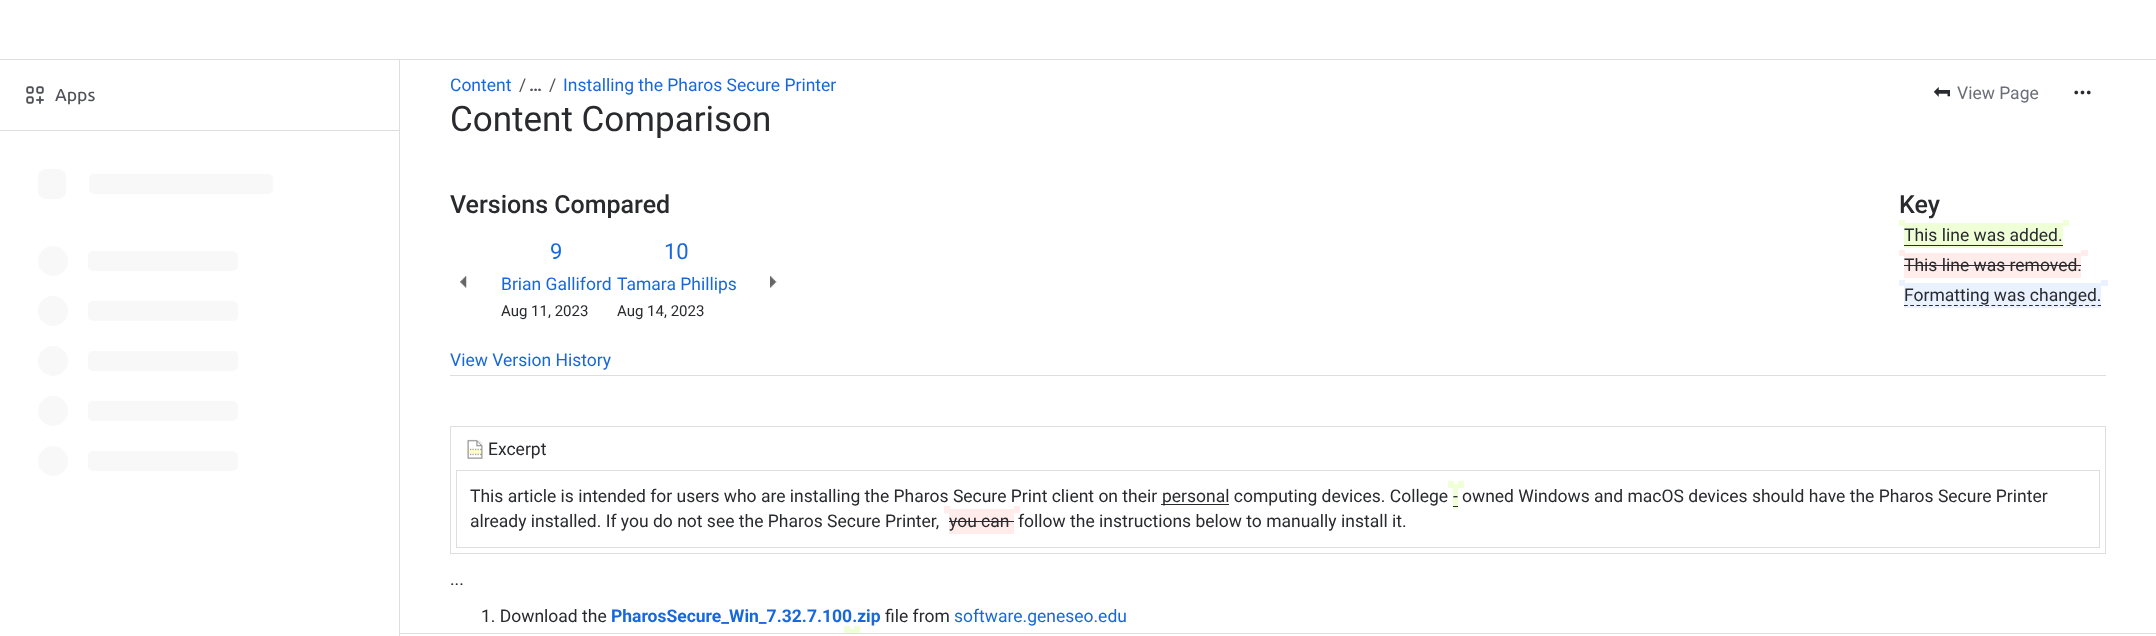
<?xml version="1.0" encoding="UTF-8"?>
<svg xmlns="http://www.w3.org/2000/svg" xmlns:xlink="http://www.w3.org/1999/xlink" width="2156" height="636">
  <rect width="100%" height="100%" fill="#ffffff" />
  <rect y="59" width="2156" height="1" fill="#dddedd" />
  <rect x="399" y="60" width="1" height="576" fill="#dddedd" />
  <image x="26" y="86" width="18" height="18" xlink:href="image1.png" />
  <rect y="130" width="399" height="1" fill="#dddedd" />
  <rect x="38" y="169" width="28" height="30" rx="8" fill="#f8f8f8" />
  <rect x="89" y="174" width="184" height="20" rx="5" fill="#f8f8f8" />
  <circle cx="53" cy="261" r="15" fill="#f8f8f8" />
  <rect x="88" y="251" width="150" height="20" rx="5" fill="#f8f8f8" />
  <circle cx="53" cy="311" r="15" fill="#f8f8f8" />
  <rect x="88" y="301" width="150" height="20" rx="5" fill="#f8f8f8" />
  <circle cx="53" cy="361" r="15" fill="#f8f8f8" />
  <rect x="88" y="351" width="150" height="20" rx="5" fill="#f8f8f8" />
  <circle cx="53" cy="411" r="15" fill="#f8f8f8" />
  <rect x="88" y="401" width="150" height="20" rx="5" fill="#f8f8f8" />
  <circle cx="53" cy="461" r="15" fill="#f8f8f8" />
  <rect x="88" y="451" width="150" height="20" rx="5" fill="#f8f8f8" />
  <rect x="400" y="633" width="1756" height="1" fill="#dddedd" />
  <image x="1933" y="87" width="17" height="10" xlink:href="image2.png" />
  <image x="2074" y="90" width="17" height="5" xlink:href="image3.png" />
  <rect x="450" y="375" width="1656" height="1" fill="#dddedd" />
  <rect x="1899" y="220" width="6" height="6" fill="#efffd6" />
  <rect x="1904" y="223" width="159" height="25" fill="#efffd6" />
  <rect x="2063" y="220" width="6" height="6" fill="#efffd6" />
  <rect x="1904" y="245" width="159" height="1" fill="#292a2e" />
  <rect x="1899" y="250" width="6" height="6" fill="#ffeceb" />
  <rect x="1904" y="253" width="177" height="25" fill="#ffeceb" />
  <rect x="2081" y="250" width="7" height="6" fill="#ffeceb" />
  <rect x="1904" y="265" width="177" height="1" fill="#292a2e" />
  <rect x="1899" y="280" width="6" height="6" fill="#e9f2fe" />
  <rect x="1904" y="283" width="197" height="25" fill="#e9f2fe" />
  <rect x="2101" y="280" width="7" height="6" fill="#e9f2fe" />
  <path d="M 1904 305.5 h 197" fill="none" stroke="#292a2e" stroke-width="1.2" stroke-dasharray="3.75 2.5" />
  <image x="460" y="276" width="7" height="12" xlink:href="image4.png" />
  <image x="770" y="276" width="7" height="12" xlink:href="image5.png" />
  <rect x="450.5" y="426.5" width="1655" height="127" fill="none" stroke="#dddedd" />
  <image x="467" y="439" width="16" height="20" xlink:href="image6.png" />
  <rect x="456.5" y="470.5" width="1643" height="77" fill="none" stroke="#dddedd" />
  <rect x="1161" y="504" width="68" height="1" fill="#292a2e" />
  <rect x="1448" y="481" width="6" height="7" fill="#efffd6" />
  <rect x="1453" y="484" width="5" height="25" fill="#efffd6" />
  <rect x="1458" y="481" width="6" height="7" fill="#efffd6" />
  <rect x="1453" y="506" width="5" height="1" fill="#292a2e" />
  <rect x="944" y="506" width="6" height="7" fill="#ffeceb" />
  <rect x="949" y="509" width="65" height="25" fill="#ffeceb" />
  <rect x="1014" y="506" width="6" height="7" fill="#ffeceb" />
  <rect x="949" y="521" width="65" height="1" fill="#292a2e" />
  <rect x="844" y="626" width="6" height="7" fill="#efffd6" />
  <rect x="849" y="629" width="5" height="4" fill="#efffd6" />
  <rect x="854" y="626" width="6" height="7" fill="#efffd6" />
  <text x="55" y="101" style="font-family: Ubuntu; font-size: 17.5px; font-weight: 500; fill: #505258">Apps</text>
  <text x="450" y="91" style="font-family: Roboto; font-size: 17.5px; fill: #1868db">Content</text>
  <text x="519" y="91" style="font-family: Roboto; font-size: 17.5px; fill: #505258">/</text>
  <text x="529" y="91" style="font-family: Roboto; font-size: 17.5px; font-weight: bold; fill: #505258">…</text>
  <text x="549" y="91" style="font-family: Roboto; font-size: 17.5px; fill: #505258">/</text>
  <text x="563" y="91" style="font-family: Roboto; font-size: 17.5px; fill: #1868db">Installing the Pharos Secure Printer</text>
  <text x="450" y="131" style="font-family: Roboto; font-size: 35px; fill: #292a2e">Content Comparison</text>
  <text x="1957" y="99" style="font-family: Roboto; font-size: 17.5px; fill: #6b6e76">View Page</text>
  <text x="450" y="213" style="font-family: Roboto; font-size: 25px; font-weight: 500; fill: #292a2e">Versions Compared</text>
  <text x="1899" y="213" style="font-family: Roboto; font-size: 25px; font-weight: 500; fill: #292a2e">Key</text>
  <text x="1904" y="241" style="font-family: Roboto; font-size: 17.5px; fill: #292a2e">This line was added.</text>
  <text x="1904" y="271" style="font-family: Roboto; font-size: 17.5px; fill: #292a2e">This line was removed.</text>
  <text x="1904" y="301" style="font-family: Roboto; font-size: 17.5px; fill: #292a2e">Formatting was changed.</text>
  <text x="550" y="259" style="font-family: Roboto; font-size: 22px; fill: #1868db">9</text>
  <text x="664" y="259" style="font-family: Roboto; font-size: 22px; fill: #1868db">10</text>
  <text x="501" y="290" style="font-family: Roboto; font-size: 17.5px; fill: #1868db">Brian Galliford</text>
  <text x="617" y="290" style="font-family: Roboto; font-size: 17.5px; fill: #1868db">Tamara Phillips</text>
  <text x="501" y="316" style="font-family: Roboto; font-size: 15px; fill: #292a2e">Aug 11, 2023</text>
  <text x="617" y="316" style="font-family: Roboto; font-size: 15px; fill: #292a2e">Aug 14, 2023</text>
  <text x="450" y="366" style="font-family: Roboto; font-size: 17.5px; fill: #1868db">View Version History</text>
  <text x="488" y="455" style="font-family: Roboto; font-size: 17.5px; fill: #292a2e">Excerpt</text>
  <text x="470" y="502" style="font-family: Roboto; font-size: 17.5px; fill: #292a2e">This article is intended for users who are installing the Pharos Secure Print client on their</text>
  <text x="1162" y="502" style="font-family: Roboto; font-size: 17.5px; fill: #292a2e">personal computing devices. College</text>
  <text x="1453" y="502" style="font-family: Roboto; font-size: 17.5px; fill: #292a2e">-</text>
  <text x="1462" y="502" style="font-family: Roboto; font-size: 17.5px; fill: #292a2e">owned Windows and macOS devices should have the Pharos Secure Printer</text>
  <text x="470" y="527" style="font-family: Roboto; font-size: 17.5px; fill: #292a2e">already installed. If you do not see the Pharos Secure Printer,</text>
  <text x="949" y="527" style="font-family: Roboto; font-size: 17.5px; fill: #292a2e">you can</text>
  <text x="1018" y="527" style="font-family: Roboto; font-size: 17.5px; fill: #292a2e">follow the instructions below to manually install it.</text>
  <text x="450" y="585" style="font-family: Roboto; font-size: 17.5px; fill: #292a2e">...</text>
  <text x="481" y="622" style="font-family: Roboto; font-size: 17.5px; fill: #292a2e">1. Download the</text>
  <text x="611" y="622" style="font-family: Roboto; font-size: 17.5px; font-weight: bold; fill: #1868db">PharosSecure_Win_7.32.7.100.zip</text>
  <text x="885" y="622" style="font-family: Roboto; font-size: 17.5px; fill: #292a2e">file from</text>
  <text x="954" y="622" style="font-family: Roboto; font-size: 17.5px; fill: #1868db">software.geneseo.edu</text>
</svg>
